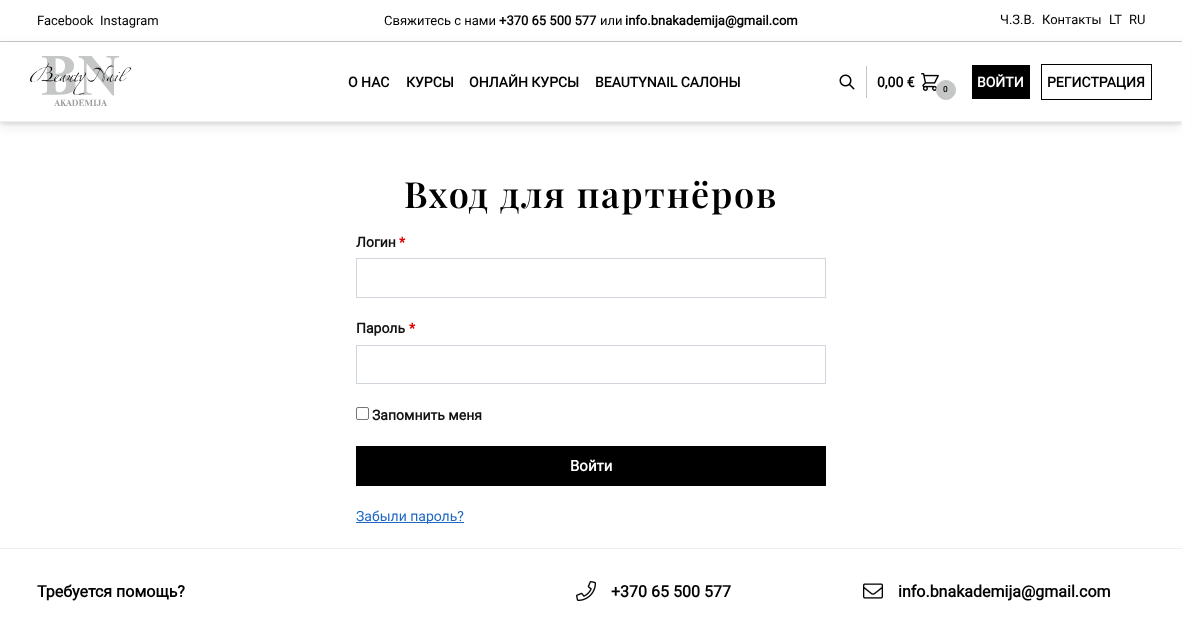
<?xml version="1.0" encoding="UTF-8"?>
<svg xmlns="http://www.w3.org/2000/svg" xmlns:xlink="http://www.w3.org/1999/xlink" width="1197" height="623">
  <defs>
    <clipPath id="clip1"><path d="M 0 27 h 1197 v 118 h -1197 z m 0 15 h 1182 v 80 h -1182 z" clip-rule="evenodd" /></clipPath>
    <clipPath id="clip2"><rect x="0" y="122" width="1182" height="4" /></clipPath>
  </defs>
  <rect width="100%" height="100%" fill="#ffffff" />
  <rect y="41" width="1182" height="1" fill="#c5c6c6" />
  <g clip-path="url(#clip1)">
    <rect y="46" width="1182" height="80" fill="#000000" fill-opacity="0.09" filter="blur(6px)" />
  </g>
  <g clip-path="url(#clip2)">
    <rect y="44" width="1182" height="80" fill="#000000" fill-opacity="0.09" filter="blur(2px)" />
  </g>
  <rect y="121" width="1182" height="1" fill="#eeeeee" />
  <image x="30" y="56" width="101" height="50" xlink:href="image1.png" />
  <image x="839" y="74" width="16" height="16" xlink:href="image2.png" />
  <rect x="866" y="66" width="1" height="32" fill="#c5c6c6" />
  <image x="921" y="73" width="18" height="18" xlink:href="image3.png" />
  <circle cx="946" cy="90" r="9.5" fill="#c5c6c6" stroke="#c5c6c6" />
  <rect x="972" y="65" width="58" height="34" fill="#000000" />
  <rect x="1041.5" y="64.5" width="110" height="35" fill="none" stroke="#000000" />
  <rect x="1182" y="41" width="7" height="89" fill="#ffffff" />
  <rect x="356.5" y="258.5" width="469" height="39" fill="none" stroke="#d1d6dc" />
  <rect x="356.5" y="345.5" width="469" height="38" fill="none" stroke="#d1d6dc" />
  <rect x="356.5" y="407.5" width="12" height="12" rx="1.5" fill="none" stroke="#767676" />
  <rect x="356" y="446" width="470" height="40" fill="#000000" />
  <rect x="356" y="522" width="108" height="1" fill="#1e68c4" />
  <rect y="548" width="1182" height="1" fill="#eeeeee" />
  <image x="576" y="581" width="20" height="20" xlink:href="image4.png" />
  <image x="863" y="583" width="20" height="16" xlink:href="image5.png" />
  <text x="37" y="25" style="font-family: Roboto; font-size: 13px; fill: #000000">Facebook</text>
  <text x="100" y="25" style="font-family: Roboto; font-size: 13px; fill: #000000">Instagram</text>
  <text x="384" y="25" style="font-family: Roboto; font-size: 13px; fill: #000000">Свяжитесь с нами</text>
  <text x="499" y="25" style="font-family: Roboto; font-size: 13px; font-weight: bold; fill: #000000">+370 65 500 577</text>
  <text x="600" y="25" style="font-family: Roboto; font-size: 13px; fill: #000000">или</text>
  <text x="625" y="25" style="font-family: Roboto; font-size: 13px; font-weight: bold; fill: #000000">info.bnakademija@gmail.com</text>
  <text x="1000" y="24" style="font-family: Roboto; font-size: 13px; fill: #000000">Ч.З.В.</text>
  <text x="1042" y="24" style="font-family: Roboto; font-size: 13px; fill: #000000">Контакты</text>
  <text x="1109" y="24" style="font-family: Roboto; font-size: 13px; fill: #000000">LT</text>
  <text x="1129" y="24" style="font-family: Roboto; font-size: 13px; fill: #000000">RU</text>
  <text x="348" y="87" style="font-family: Roboto; font-size: 14px; font-weight: bold; fill: #000000">О НАС</text>
  <text x="406" y="87" style="font-family: Roboto; font-size: 14px; font-weight: bold; fill: #000000">КУРСЫ</text>
  <text x="469" y="87" style="font-family: Roboto; font-size: 14px; font-weight: bold; fill: #000000">ОНЛАЙН КУРСЫ</text>
  <text x="595" y="87" style="font-family: Roboto; font-size: 14px; font-weight: bold; fill: #000000">BEAUTYNAIL САЛОНЫ</text>
  <text x="877" y="87" style="font-family: Roboto; font-size: 14px; font-weight: bold; fill: #000000">0,00 €</text>
  <text x="943" y="92" style="font-family: Roboto; font-size: 8px; font-weight: bold; fill: #000000">0</text>
  <text x="977" y="87" style="font-family: Roboto; font-size: 14px; font-weight: bold; fill: #ffffff">ВОЙТИ</text>
  <text x="1047" y="87" style="font-family: Roboto; font-size: 14px; font-weight: bold; fill: #000000">РЕГИСТРАЦИЯ</text>
  <text x="404" y="208" style="font-family: Playfair Display; font-size: 36px; font-weight: 600; letter-spacing: 1.75px; fill: #000000">Вход для партнёров</text>
  <text x="356" y="247" style="font-family: Roboto; font-size: 14px; font-weight: bold; fill: #111111">Логин</text>
  <text x="399" y="247" style="font-family: Roboto; font-size: 14px; font-weight: bold; fill: #df0202">*</text>
  <text x="356" y="333" style="font-family: Roboto; font-size: 14px; font-weight: bold; fill: #111111">Пароль</text>
  <text x="409" y="333" style="font-family: Roboto; font-size: 14px; font-weight: bold; fill: #df0202">*</text>
  <text x="372" y="420" style="font-family: Roboto; font-size: 14px; font-weight: bold; fill: #111111">Запомнить меня</text>
  <text x="570" y="471" style="font-family: Roboto; font-size: 15px; font-weight: bold; fill: #ffffff">Войти</text>
  <text x="356" y="521" style="font-family: Roboto; font-size: 14px; fill: #1e68c4">Забыли пароль?</text>
  <text x="37" y="597" style="font-family: Roboto; font-size: 16px; font-weight: bold; fill: #000000">Требуется помощь?</text>
  <text x="611" y="597" style="font-family: Roboto; font-size: 16px; font-weight: bold; fill: #000000">+370 65 500 577</text>
  <text x="898" y="597" style="font-family: Roboto; font-size: 16px; font-weight: bold; fill: #000000">info.bnakademija@gmail.com</text>
</svg>
